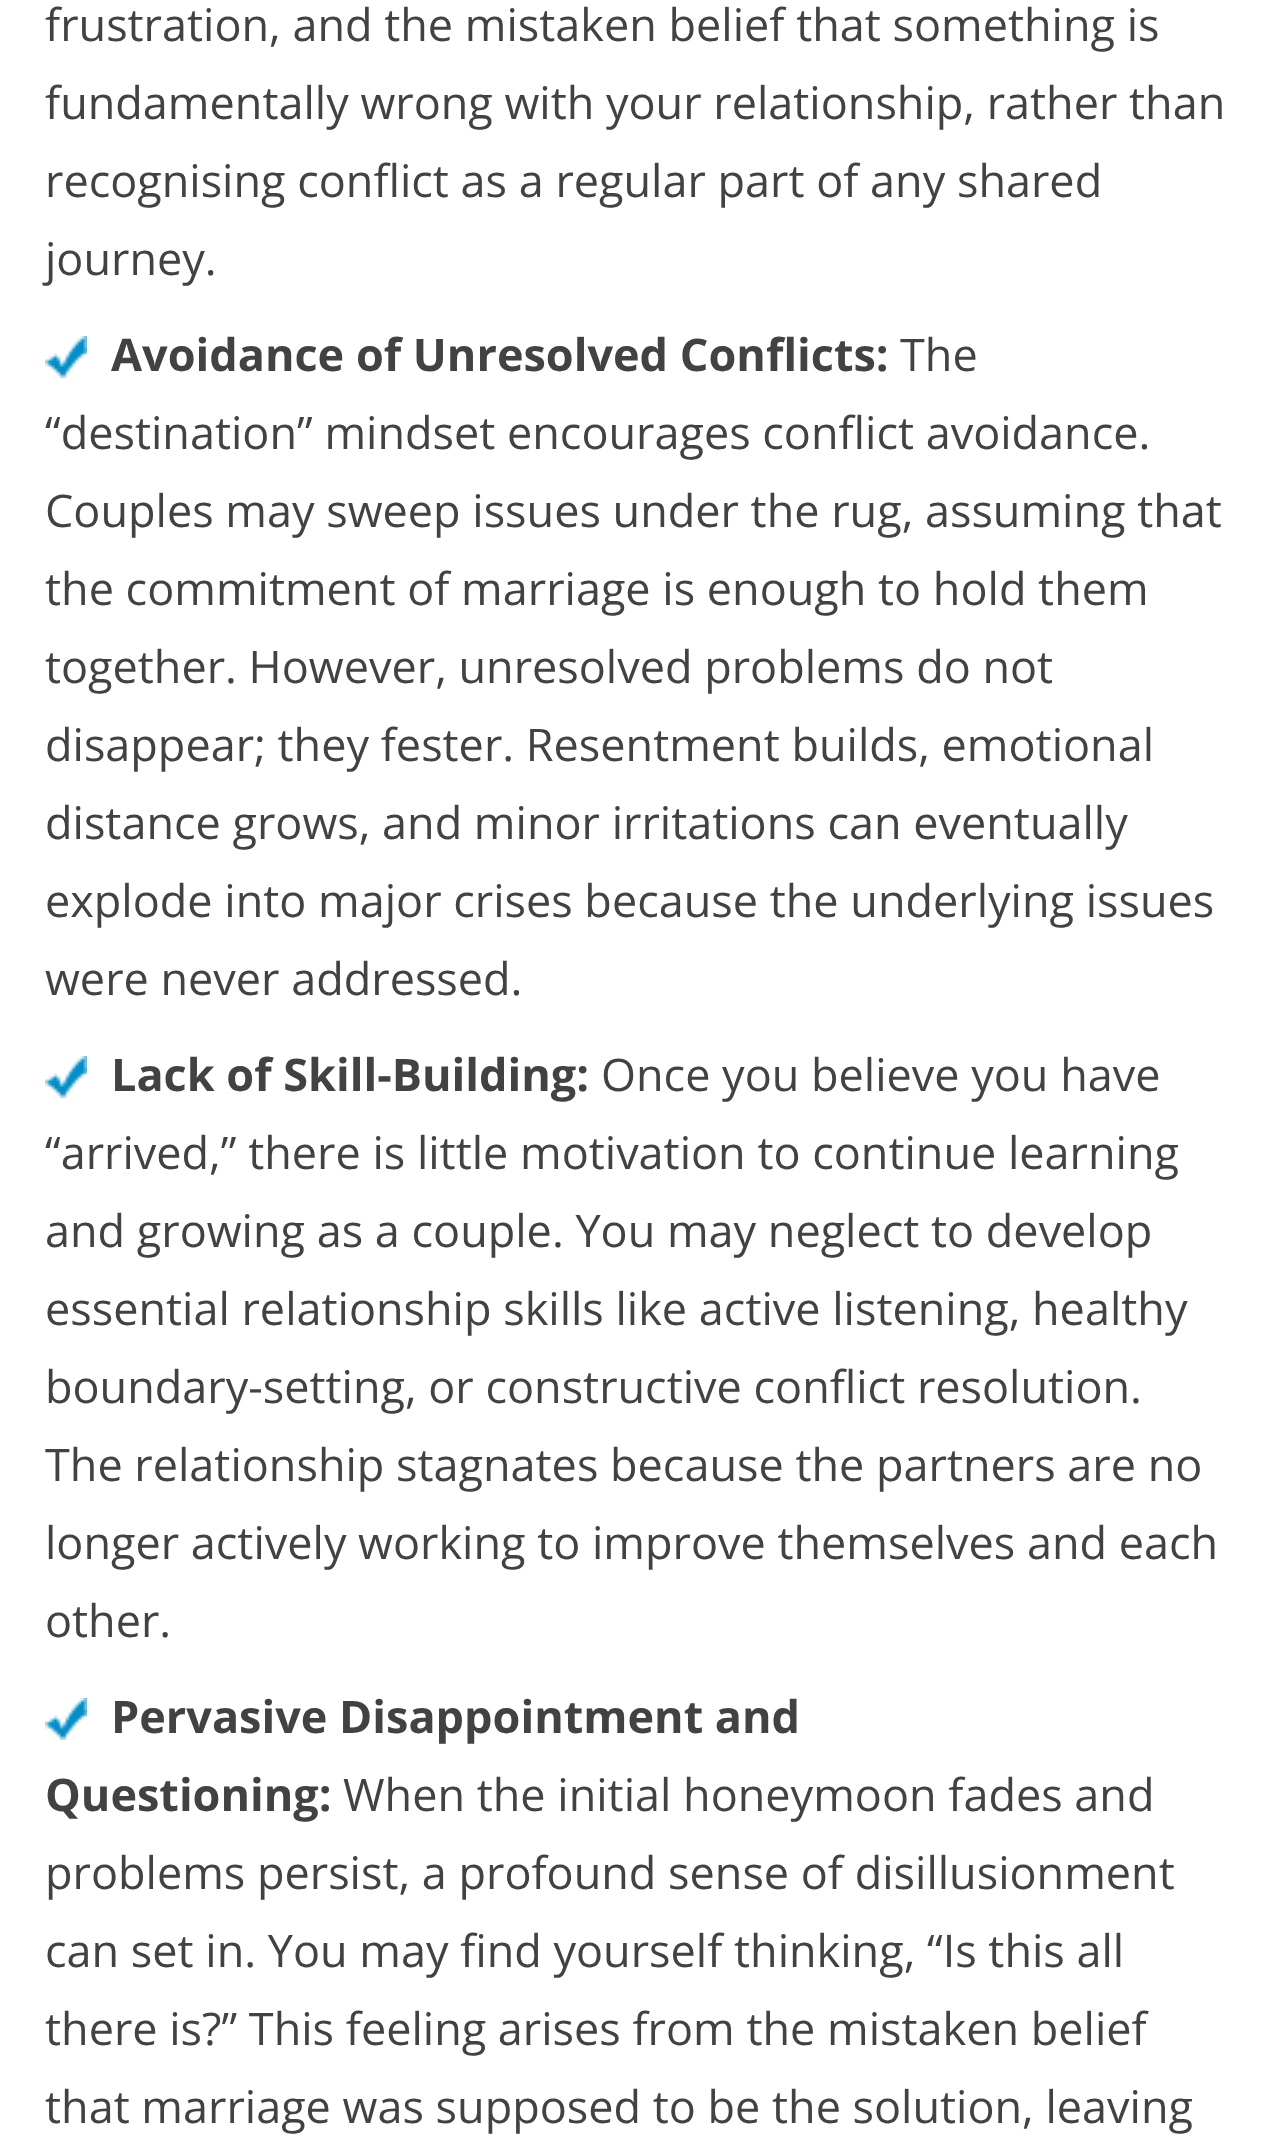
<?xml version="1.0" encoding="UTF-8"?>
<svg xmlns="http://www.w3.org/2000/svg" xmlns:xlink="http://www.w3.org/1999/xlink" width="1270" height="2150">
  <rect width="100%" height="100%" fill="#ffffff" />
  <image x="45" y="336" width="42" height="42" xlink:href="image1.png" />
  <image x="45" y="1056" width="42" height="42" xlink:href="image1.png" />
  <image x="45" y="1698" width="42" height="42" xlink:href="image1.png" />
  <text x="45" y="41" style="font-family: Open Sans; font-size: 45px; fill: #424242">frustration, and the mistaken belief that something is</text>
  <text x="45" y="119" style="font-family: Open Sans; font-size: 45px; fill: #424242">fundamentally wrong with your relationship, rather than</text>
  <text x="45" y="197" style="font-family: Open Sans; font-size: 45px; fill: #424242">recognising conflict as a regular part of any shared</text>
  <text x="45" y="275" style="font-family: Open Sans; font-size: 45px; fill: #424242">journey.</text>
  <text x="111" y="371" style="font-family: Open Sans; font-size: 45px; font-weight: bold; fill: #424242">Avoidance of Unresolved Conflicts:</text>
  <text x="900" y="371" style="font-family: Open Sans; font-size: 45px; fill: #424242">The</text>
  <text x="45" y="449" style="font-family: Open Sans; font-size: 45px; fill: #424242">“destination” mindset encourages conflict avoidance.</text>
  <text x="45" y="527" style="font-family: Open Sans; font-size: 45px; fill: #424242">Couples may sweep issues under the rug, assuming that</text>
  <text x="45" y="605" style="font-family: Open Sans; font-size: 45px; fill: #424242">the commitment of marriage is enough to hold them</text>
  <text x="45" y="683" style="font-family: Open Sans; font-size: 45px; fill: #424242">together. However, unresolved problems do not</text>
  <text x="45" y="761" style="font-family: Open Sans; font-size: 45px; fill: #424242">disappear; they fester. Resentment builds, emotional</text>
  <text x="45" y="839" style="font-family: Open Sans; font-size: 45px; fill: #424242">distance grows, and minor irritations can eventually</text>
  <text x="45" y="917" style="font-family: Open Sans; font-size: 45px; fill: #424242">explode into major crises because the underlying issues</text>
  <text x="45" y="995" style="font-family: Open Sans; font-size: 45px; fill: #424242">were never addressed.</text>
  <text x="111" y="1091" style="font-family: Open Sans; font-size: 45px; font-weight: bold; fill: #424242">Lack of Skill-Building:</text>
  <text x="601" y="1091" style="font-family: Open Sans; font-size: 45px; fill: #424242">Once you believe you have</text>
  <text x="45" y="1169" style="font-family: Open Sans; font-size: 45px; fill: #424242">“arrived,” there is little motivation to continue learning</text>
  <text x="45" y="1247" style="font-family: Open Sans; font-size: 45px; fill: #424242">and growing as a couple. You may neglect to develop</text>
  <text x="45" y="1325" style="font-family: Open Sans; font-size: 45px; fill: #424242">essential relationship skills like active listening, healthy</text>
  <text x="45" y="1403" style="font-family: Open Sans; font-size: 45px; fill: #424242">boundary-setting, or constructive conflict resolution.</text>
  <text x="45" y="1481" style="font-family: Open Sans; font-size: 45px; fill: #424242">The relationship stagnates because the partners are no</text>
  <text x="45" y="1559" style="font-family: Open Sans; font-size: 45px; fill: #424242">longer actively working to improve themselves and each</text>
  <text x="45" y="1637" style="font-family: Open Sans; font-size: 45px; fill: #424242">other.</text>
  <text x="111" y="1733" style="font-family: Open Sans; font-size: 45px; font-weight: bold; fill: #424242">Pervasive Disappointment and</text>
  <text x="45" y="1811" style="font-family: Open Sans; font-size: 45px; font-weight: bold; fill: #424242">Questioning:</text>
  <text x="343" y="1811" style="font-family: Open Sans; font-size: 45px; fill: #424242">When the initial honeymoon fades and</text>
  <text x="45" y="1889" style="font-family: Open Sans; font-size: 45px; fill: #424242">problems persist, a profound sense of disillusionment</text>
  <text x="45" y="1967" style="font-family: Open Sans; font-size: 45px; fill: #424242">can set in. You may find yourself thinking, “Is this all</text>
  <text x="45" y="2045" style="font-family: Open Sans; font-size: 45px; fill: #424242">there is?” This feeling arises from the mistaken belief</text>
  <text x="45" y="2123" style="font-family: Open Sans; font-size: 45px; fill: #424242">that marriage was supposed to be the solution, leaving</text>
</svg>
